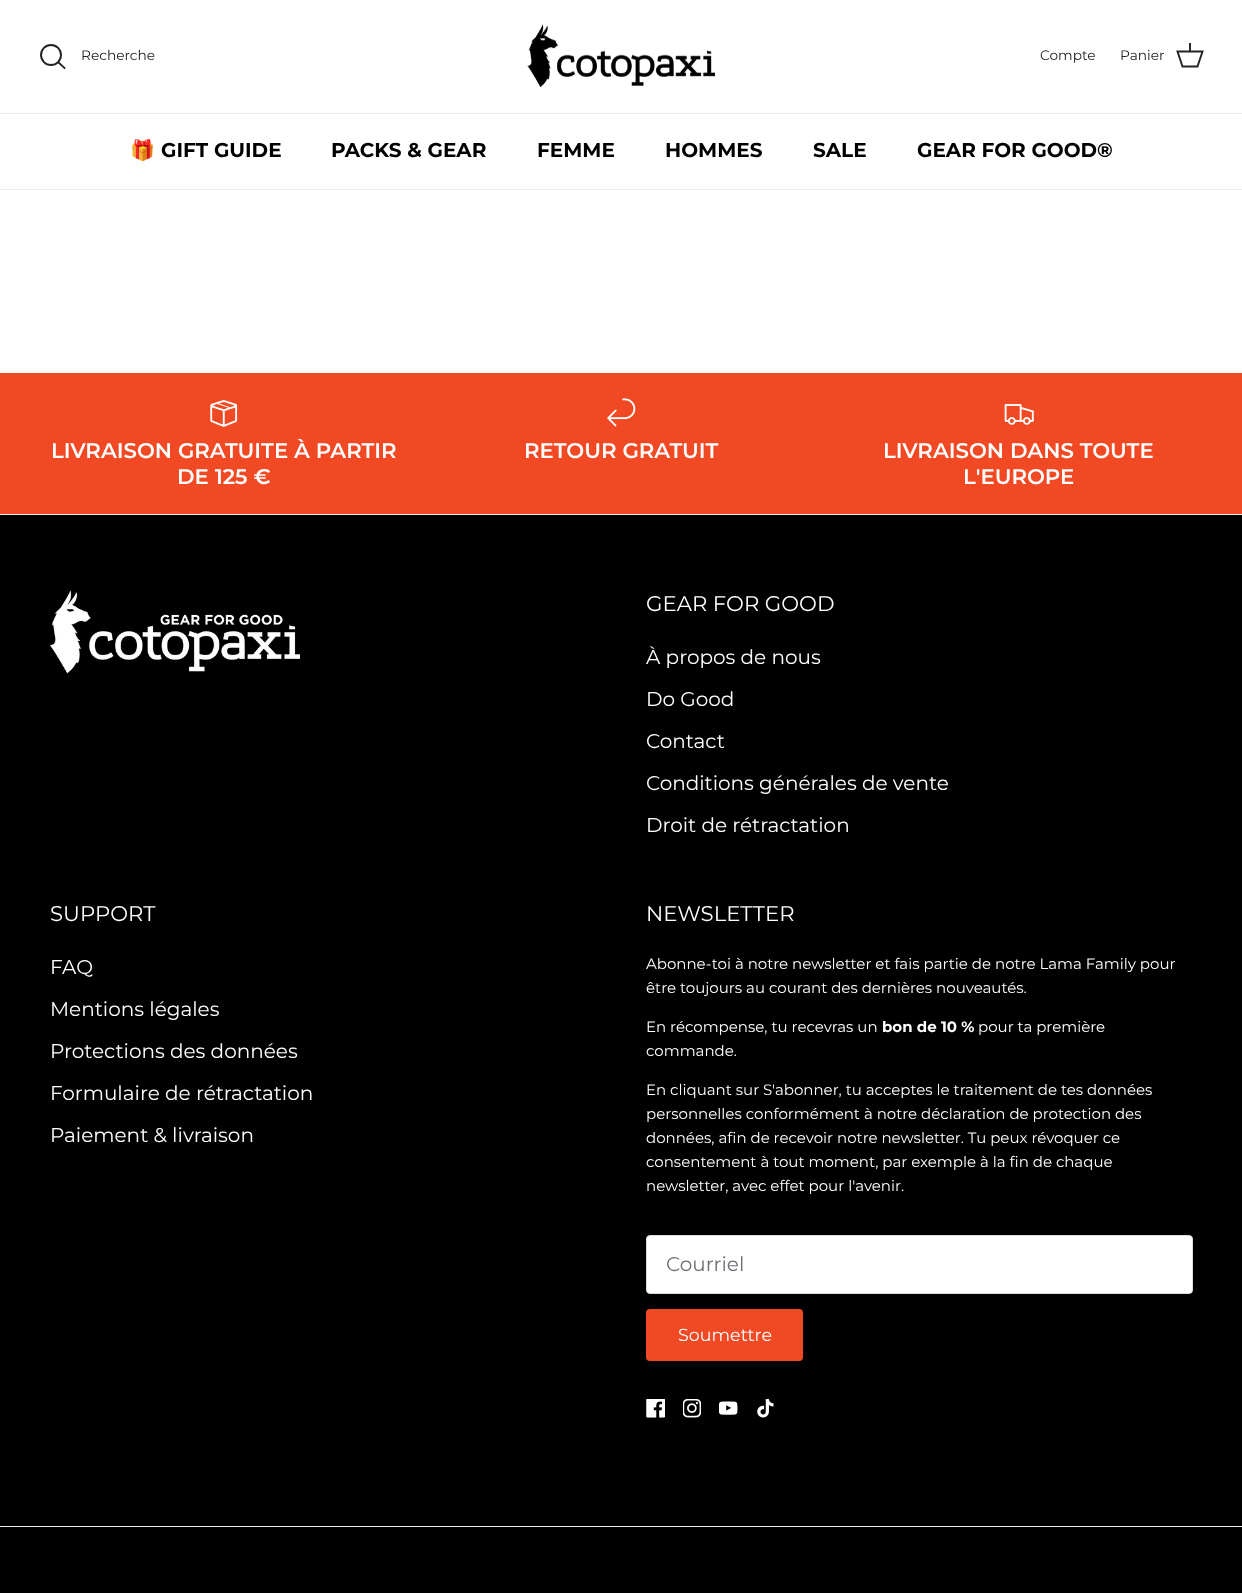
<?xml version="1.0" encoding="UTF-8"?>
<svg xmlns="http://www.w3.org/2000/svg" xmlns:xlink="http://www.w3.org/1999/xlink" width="1242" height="1593">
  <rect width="100%" height="100%" fill="#ffffff" />
  <rect y="113" width="1242" height="1" fill="#edebe9" />
  <circle cx="51" cy="55" r="10" fill="none" stroke="#202223" stroke-width="1.9" />
  <path d="M 58.5 62.5 l 6 5.5" fill="none" stroke="#202223" stroke-width="1.9" stroke-linecap="square" />
  <image x="527" y="24" width="188" height="63" xlink:href="image1.png" />
  <path d="M 1177.5 51.5 h 25 l -5 15 h -15 z" fill="none" stroke="#202223" stroke-width="1.9" />
  <rect x="1189" y="43" width="2" height="9" fill="#202223" fill-opacity="0.95" />
  <rect y="189" width="1242" height="1" fill="#edebe9" />
  <rect y="515" width="1242" height="1078" fill="#000000" />
  <rect y="373" width="1242" height="141" fill="#f04923" />
  <image x="210" y="400" width="28" height="27" xlink:href="image2.png" />
  <image x="607" y="398" width="29" height="29" xlink:href="image3.png" />
  <image x="1004" y="404" width="30" height="21" xlink:href="image4.png" />
  <rect y="514" width="1242" height="1" fill="#eeeeee" />
  <image x="50" y="590" width="250" height="84" xlink:href="image5.png" />
  <rect x="646.5" y="1235.5" width="546" height="58" rx="3.5" fill="#ffffff" stroke="#dbdcdd" />
  <rect x="646" y="1309" width="157" height="52" rx="4" fill="#f04923" />
  <image x="646" y="1399" width="19" height="19" xlink:href="image6.png" />
  <image x="683" y="1399" width="18" height="19" xlink:href="image7.png" />
  <image x="719" y="1401" width="19" height="14" xlink:href="image8.png" />
  <image x="757" y="1399" width="17" height="19" xlink:href="image9.png" />
  <rect y="1526" width="1242" height="1" fill="#eeeeee" />
  <text x="81" y="60" style="font-family: Montserrat; font-size: 13.75px; fill: #202223">Recherche</text>
  <text x="1040" y="60" style="font-family: Montserrat; font-size: 13.75px; fill: #202223">Compte</text>
  <text x="1120" y="60" style="font-family: Montserrat; font-size: 13.75px; fill: #202223">Panier</text>
  <text x="130" y="157" style="font-family: Noto Color Emoji; font-size: 20px; font-weight: bold; fill: #000000">🎁</text>
  <text x="161" y="157" style="font-family: Montserrat; font-size: 20px; font-weight: bold; fill: #000000">GIFT GUIDE</text>
  <text x="331" y="157" style="font-family: Montserrat; font-size: 20px; font-weight: bold; fill: #000000">PACKS &amp; GEAR</text>
  <text x="537" y="157" style="font-family: Montserrat; font-size: 20px; font-weight: bold; fill: #000000">FEMME</text>
  <text x="665" y="157" style="font-family: Montserrat; font-size: 20px; font-weight: bold; fill: #000000">HOMMES</text>
  <text x="813" y="157" style="font-family: Montserrat; font-size: 20px; font-weight: bold; fill: #000000">SALE</text>
  <text x="917" y="157" style="font-family: Montserrat; font-size: 20px; font-weight: bold; fill: #000000">GEAR FOR GOOD®</text>
  <text x="51" y="458" style="font-family: Montserrat; font-size: 21.25px; font-weight: 600; fill: #ffffff">LIVRAISON GRATUITE À PARTIR</text>
  <text x="177" y="484" style="font-family: Montserrat; font-size: 21.25px; font-weight: 600; fill: #ffffff">DE 125 €</text>
  <text x="524" y="458" style="font-family: Montserrat; font-size: 21.25px; font-weight: 600; fill: #ffffff">RETOUR GRATUIT</text>
  <text x="883" y="458" style="font-family: Montserrat; font-size: 21.25px; font-weight: 600; fill: #ffffff">LIVRAISON DANS TOUTE</text>
  <text x="963" y="484" style="font-family: Montserrat; font-size: 21.25px; font-weight: 600; fill: #ffffff">L'EUROPE</text>
  <text x="646" y="611" style="font-family: Montserrat; font-size: 21.25px; fill: #ffffff">GEAR FOR GOOD</text>
  <text x="646" y="664" style="font-family: Montserrat; font-size: 20px; fill: #ffffff">À propos de nous</text>
  <text x="646" y="706" style="font-family: Montserrat; font-size: 20px; fill: #ffffff">Do Good</text>
  <text x="646" y="748" style="font-family: Montserrat; font-size: 20px; fill: #ffffff">Contact</text>
  <text x="646" y="790" style="font-family: Montserrat; font-size: 20px; fill: #ffffff">Conditions générales de vente</text>
  <text x="646" y="832" style="font-family: Montserrat; font-size: 20px; fill: #ffffff">Droit de rétractation</text>
  <text x="50" y="921" style="font-family: Montserrat; font-size: 21.25px; fill: #ffffff">SUPPORT</text>
  <text x="50" y="974" style="font-family: Montserrat; font-size: 20px; fill: #ffffff">FAQ</text>
  <text x="50" y="1016" style="font-family: Montserrat; font-size: 20px; fill: #ffffff">Mentions légales</text>
  <text x="50" y="1058" style="font-family: Montserrat; font-size: 20px; fill: #ffffff">Protections des données</text>
  <text x="50" y="1100" style="font-family: Montserrat; font-size: 20px; fill: #ffffff">Formulaire de rétractation</text>
  <text x="50" y="1142" style="font-family: Montserrat; font-size: 20px; fill: #ffffff">Paiement &amp; livraison</text>
  <text x="646" y="921" style="font-family: Montserrat; font-size: 21.25px; fill: #ffffff">NEWSLETTER</text>
  <text x="646" y="969" style="font-family: Montserrat; font-size: 15px; fill: #ffffff">Abonne-toi à notre newsletter et fais partie de notre Lama Family pour</text>
  <text x="646" y="993" style="font-family: Montserrat; font-size: 15px; fill: #ffffff">être toujours au courant des dernières nouveautés.</text>
  <text x="646" y="1032" style="font-family: Montserrat; font-size: 15px; fill: #ffffff">En récompense, tu recevras un</text>
  <text x="882" y="1032" style="font-family: Montserrat; font-size: 15px; font-weight: bold; fill: #ffffff">bon de 10 %</text>
  <text x="978" y="1032" style="font-family: Montserrat; font-size: 15px; fill: #ffffff">pour ta première</text>
  <text x="646" y="1056" style="font-family: Montserrat; font-size: 15px; fill: #ffffff">commande.</text>
  <text x="646" y="1095" style="font-family: Montserrat; font-size: 15px; fill: #ffffff">En cliquant sur S'abonner, tu acceptes le traitement de tes données</text>
  <text x="646" y="1119" style="font-family: Montserrat; font-size: 15px; fill: #ffffff">personnelles conformément à notre déclaration de protection des</text>
  <text x="646" y="1143" style="font-family: Montserrat; font-size: 15px; fill: #ffffff">données, afin de recevoir notre newsletter. Tu peux révoquer ce</text>
  <text x="646" y="1167" style="font-family: Montserrat; font-size: 15px; fill: #ffffff">consentement à tout moment, par exemple à la fin de chaque</text>
  <text x="646" y="1191" style="font-family: Montserrat; font-size: 15px; fill: #ffffff">newsletter, avec effet pour l'avenir.</text>
  <text x="666" y="1271" style="font-family: Montserrat; font-size: 20px; fill: #6d7175">Courriel</text>
  <text x="678" y="1341" style="font-family: Montserrat; font-size: 17.5px; fill: #ffffff">Soumettre</text>
</svg>
